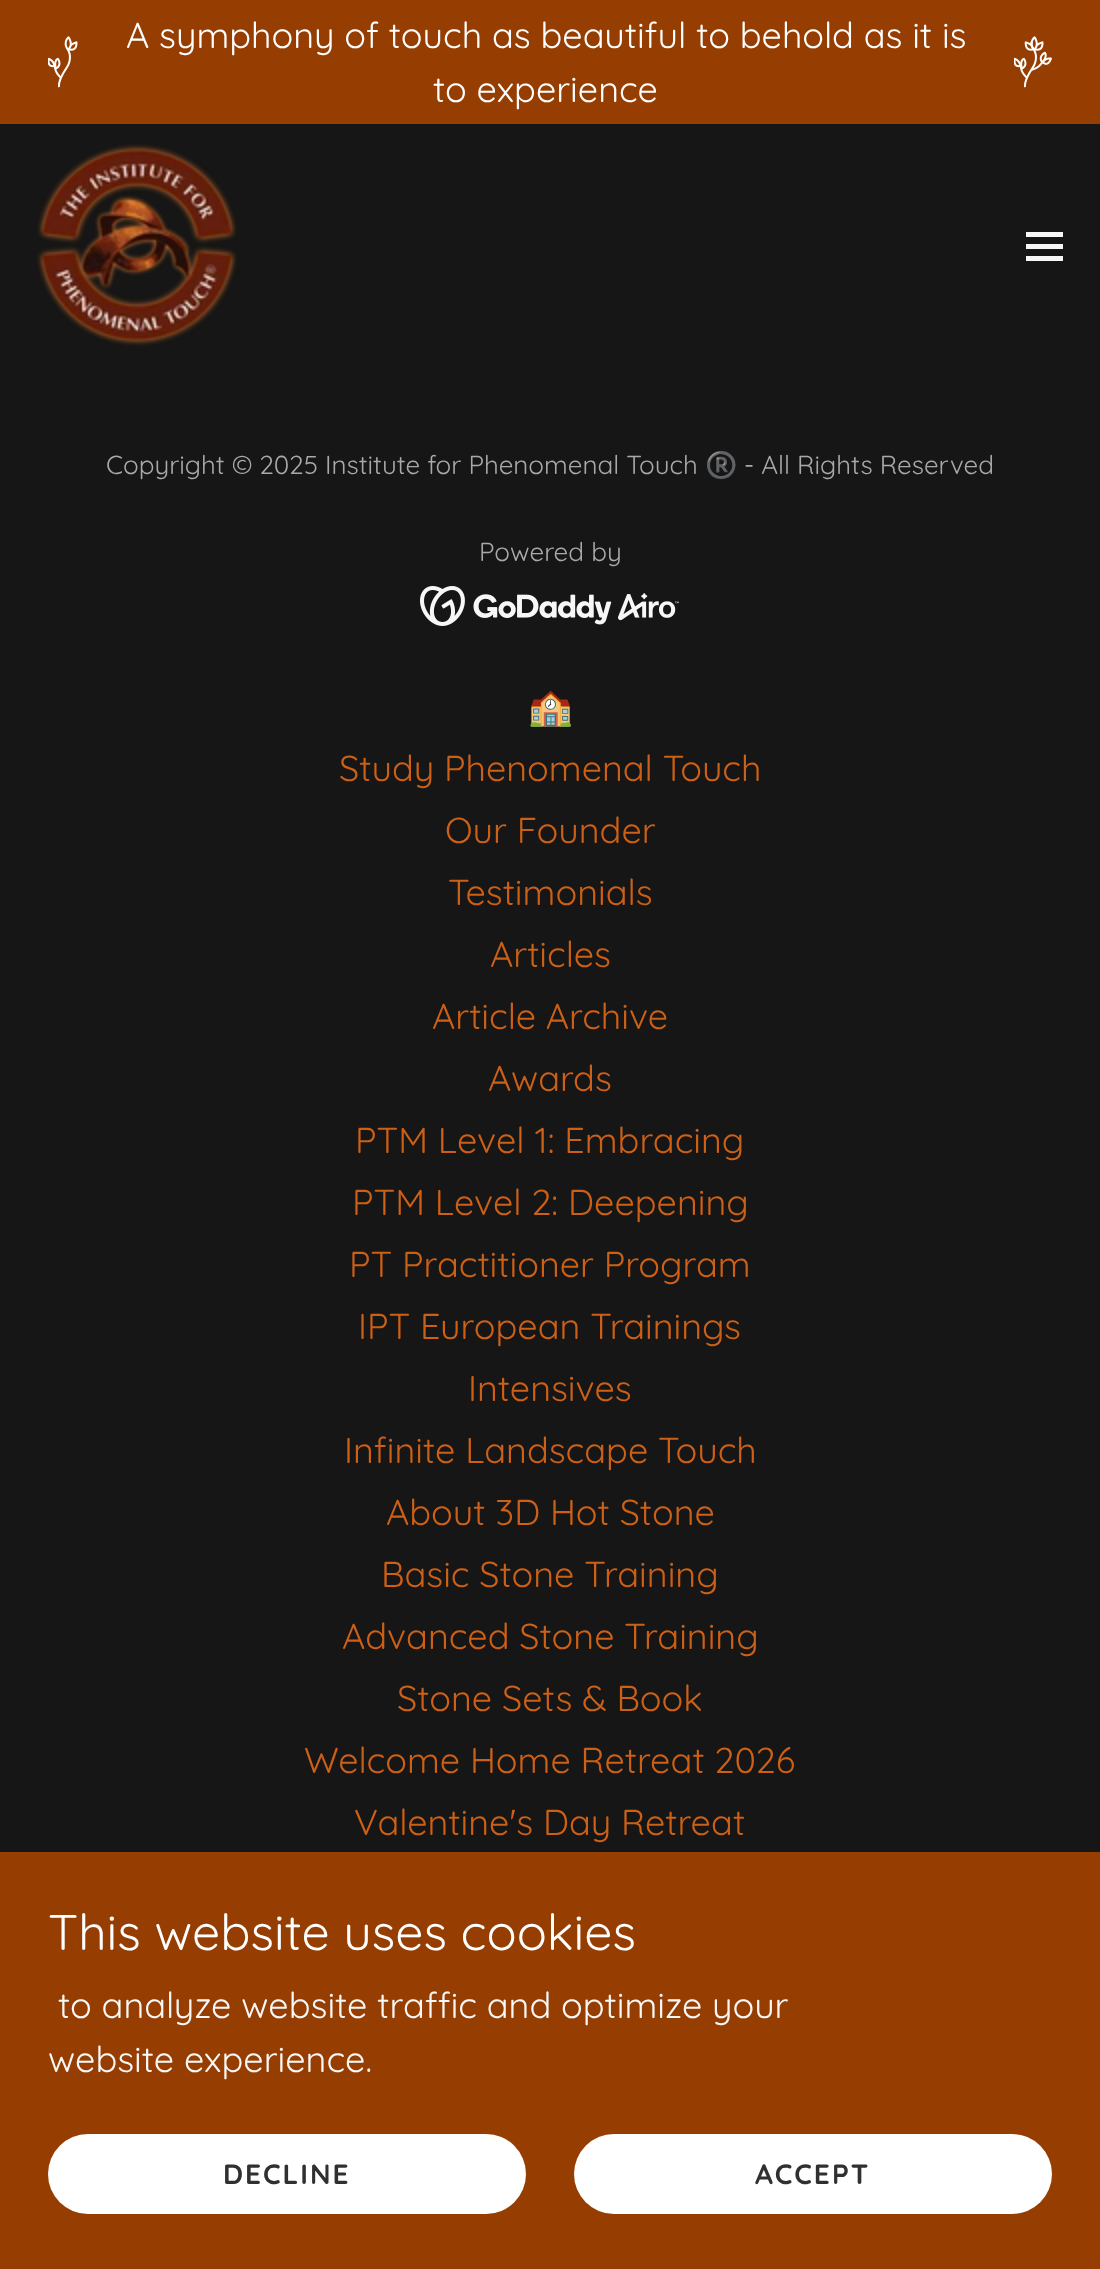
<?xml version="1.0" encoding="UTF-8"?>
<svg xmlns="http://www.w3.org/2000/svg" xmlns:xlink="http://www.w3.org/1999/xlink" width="1100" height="2269">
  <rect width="100%" height="100%" fill="#161616" />
  <rect width="1100" height="124" fill="#963e02" />
  <image x="48" y="36" width="30" height="52" xlink:href="image1.png" />
  <image x="1014" y="36" width="38" height="52" xlink:href="image2.png" />
  <image x="36" y="144" width="202" height="202" xlink:href="image3.png" />
  <rect x="1026" y="232" width="37" height="5" fill="#f7f7f7" />
  <rect x="1026" y="244" width="37" height="5" fill="#f7f7f7" />
  <rect x="1026" y="256" width="37" height="5" fill="#f7f7f7" />
  <image x="420" y="586" width="259" height="40" xlink:href="image4.png" />
  <rect y="1852" width="1100" height="417" fill="#963e02" />
  <rect x="48" y="2134" width="478" height="80" rx="40" fill="#ffffff" />
  <rect x="574" y="2134" width="478" height="80" rx="40" fill="#ffffff" />
  <text x="126" y="48" style="font-family: Quicksand; font-size: 36px; fill: #ffffff">A symphony of touch as beautiful to behold as it is</text>
  <text x="433" y="102" style="font-family: Quicksand; font-size: 36px; fill: #ffffff">to experience</text>
  <text x="106" y="474" style="font-family: Quicksand; font-size: 26px; fill: #a9a9a9">Copyright © 2025 Institute for Phenomenal Touch</text>
  <text x="705" y="474" style="font-family: Noto Color Emoji; font-size: 26px; fill: #a9a9a9">®️</text>
  <text x="744" y="474" style="font-family: Quicksand; font-size: 26px; fill: #a9a9a9">- All Rights Reserved</text>
  <text x="479" y="561" style="font-family: Quicksand; font-size: 26px; fill: #a9a9a9">Powered by</text>
  <text x="528" y="719" style="font-family: Noto Color Emoji; font-size: 36px; fill: #cc6016">🏫</text>
  <text x="339" y="781" style="font-family: Quicksand; font-size: 36px; fill: #cc6016">Study Phenomenal Touch</text>
  <text x="445" y="843" style="font-family: Quicksand; font-size: 36px; fill: #cc6016">Our Founder</text>
  <text x="448" y="905" style="font-family: Quicksand; font-size: 36px; fill: #cc6016">Testimonials</text>
  <text x="490" y="967" style="font-family: Quicksand; font-size: 36px; fill: #cc6016">Articles</text>
  <text x="432" y="1029" style="font-family: Quicksand; font-size: 36px; fill: #cc6016">Article Archive</text>
  <text x="488" y="1091" style="font-family: Quicksand; font-size: 36px; fill: #cc6016">Awards</text>
  <text x="355" y="1153" style="font-family: Quicksand; font-size: 36px; fill: #cc6016">PTM Level 1: Embracing</text>
  <text x="352" y="1215" style="font-family: Quicksand; font-size: 36px; fill: #cc6016">PTM Level 2: Deepening</text>
  <text x="349" y="1277" style="font-family: Quicksand; font-size: 36px; fill: #cc6016">PT Practitioner Program</text>
  <text x="358" y="1339" style="font-family: Quicksand; font-size: 36px; fill: #cc6016">IPT European Trainings</text>
  <text x="468" y="1401" style="font-family: Quicksand; font-size: 36px; fill: #cc6016">Intensives</text>
  <text x="344" y="1463" style="font-family: Quicksand; font-size: 36px; fill: #cc6016">Infinite Landscape Touch</text>
  <text x="386" y="1525" style="font-family: Quicksand; font-size: 36px; fill: #cc6016">About 3D Hot Stone</text>
  <text x="381" y="1587" style="font-family: Quicksand; font-size: 36px; fill: #cc6016">Basic Stone Training</text>
  <text x="342" y="1649" style="font-family: Quicksand; font-size: 36px; fill: #cc6016">Advanced Stone Training</text>
  <text x="397" y="1711" style="font-family: Quicksand; font-size: 36px; fill: #cc6016">Stone Sets &amp; Book</text>
  <text x="304" y="1773" style="font-family: Quicksand; font-size: 36px; fill: #cc6016">Welcome Home Retreat 2026</text>
  <text x="354" y="1835" style="font-family: Quicksand; font-size: 36px; fill: #cc6016">Valentine's Day Retreat</text>
  <text x="48" y="1950" style="font-family: Quicksand; font-size: 50px; fill: #ffffff">This website uses cookies</text>
  <text x="58" y="2018" style="font-family: Quicksand; font-size: 36px; fill: #f9f8f8">to analyze website traffic and optimize your</text>
  <text x="48" y="2072" style="font-family: Quicksand; font-size: 36px; fill: #f9f8f8">website experience.</text>
  <text x="223" y="2184" style="font-family: Quicksand; font-size: 28px; font-weight: bold; letter-spacing: 2px; fill: #303030">DECLINE</text>
  <text x="755" y="2184" style="font-family: Quicksand; font-size: 28px; font-weight: bold; letter-spacing: 2px; fill: #303030">ACCEPT</text>
</svg>
